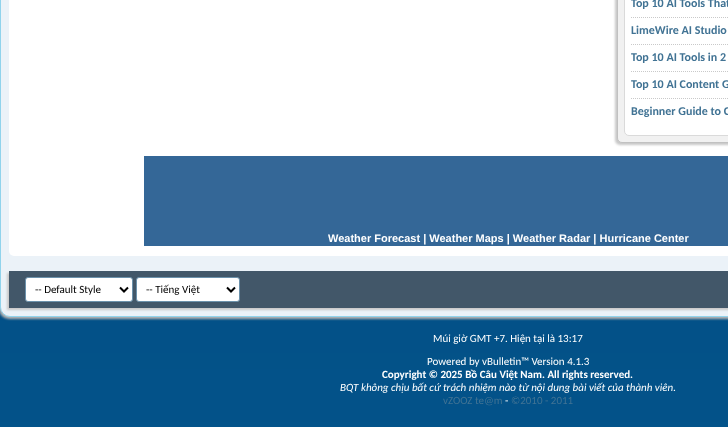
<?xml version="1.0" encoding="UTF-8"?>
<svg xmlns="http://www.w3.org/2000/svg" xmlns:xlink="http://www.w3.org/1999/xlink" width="728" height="427">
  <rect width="100%" height="100%" fill="#ffffff" />
  <image x="0" y="307" width="728" height="120" xlink:href="image1.png" />
  <rect x="-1" y="-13" width="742" height="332" rx="10" fill="#b3b3b3" filter="blur(1px)" />
  <rect x="0.5" y="-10.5" width="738" height="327" rx="9.5" fill="#ebf2f8" stroke="#90d3ec" />
  <rect x="9" y="-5" width="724" height="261" rx="5" fill="#ffffff" />
  <rect x="615" y="-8" width="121" height="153" rx="5" fill="#c8c8c8" filter="blur(1px)" />
  <rect x="617.5" y="-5.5" width="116" height="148" rx="4.5" fill="#f1f1f1" stroke="#c1c1c1" />
  <rect x="624.5" y="-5.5" width="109" height="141" rx="4.5" fill="#ffffff" stroke="#dadada" />
  <path d="M 631 17.5 h 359" fill="none" stroke="#c9c9c9" stroke-dasharray="1 1" />
  <path d="M 631 44.5 h 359" fill="none" stroke="#c9c9c9" stroke-dasharray="1 1" />
  <path d="M 631 71.5 h 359" fill="none" stroke="#c9c9c9" stroke-dasharray="1 1" />
  <path d="M 631 98.5 h 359" fill="none" stroke="#c9c9c9" stroke-dasharray="1 1" />
  <rect x="144" y="156" width="584" height="90" fill="#346797" />
  <rect x="7" y="273" width="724" height="37" fill="#c8c8c8" filter="blur(1px)" />
  <rect x="9" y="271" width="719" height="37" fill="#425769" />
  <rect x="25.5" y="277.5" width="107" height="24" rx="2.5" fill="#ffffff" stroke="#6b91ab" />
  <path d="M 120 287.5 l 4 4 l 4 -4" fill="none" stroke="#000000" stroke-width="2" />
  <rect x="136.5" y="277.5" width="103" height="24" rx="2.5" fill="#ffffff" stroke="#6b91ab" />
  <path d="M 227 287.5 l 4 4 l 4 -4" fill="none" stroke="#000000" stroke-width="2" />
  <text x="631" y="7" style="font-family: Carlito; font-size: 12px; font-weight: bold; fill: #417394">Top 10 AI Tools That</text>
  <text x="631" y="34" style="font-family: Carlito; font-size: 12px; font-weight: bold; fill: #417394">LimeWire AI Studio</text>
  <text x="631" y="61" style="font-family: Carlito; font-size: 12px; font-weight: bold; fill: #417394">Top 10 AI Tools in 2</text>
  <text x="631" y="88" style="font-family: Carlito; font-size: 12px; font-weight: bold; fill: #417394">Top 10 AI Content G</text>
  <text x="631" y="115" style="font-family: Carlito; font-size: 12px; font-weight: bold; fill: #417394">Beginner Guide to C</text>
  <text x="328" y="242" style="font-family: Liberation Sans; font-size: 11px; font-weight: bold; fill: #ffffff">Weather Forecast | Weather Maps | Weather Radar | Hurricane Center</text>
  <text x="35" y="293" style="font-family: Carlito; font-size: 11px; fill: #000000">-- Default Style</text>
  <text x="146" y="293" style="font-family: Carlito; font-size: 11px; fill: #000000">-- Tiếng Việt</text>
  <text x="433" y="342" style="font-family: Carlito; font-size: 11px; fill: #ffffff">Múi giờ GMT +7. Hiện tại là 13:17</text>
  <text x="427" y="365" style="font-family: Carlito; font-size: 11px; fill: #ffffff">Powered by vBulletin™ Version 4.1.3</text>
  <text x="382" y="378" style="font-family: Carlito; font-size: 11px; font-weight: bold; fill: #ffffff">Copyright © 2025 Bồ Câu Việt Nam. All rights reserved.</text>
  <text x="340" y="391" style="font-family: Carlito; font-size: 11px; font-style: italic; fill: #ffffff">BQT không chịu bất cứ trách nhiệm nào từ nội dung bài viết của thành viên.</text>
  <text x="443" y="404" style="font-family: Carlito; font-size: 11px; fill: #417394">vZOOZ te@m</text>
  <text x="505" y="404" style="font-family: Carlito; font-size: 11px; fill: #ffffff">-</text>
  <text x="511" y="404" style="font-family: Carlito; font-size: 11px; fill: #417394">©2010 - 2011</text>
</svg>
